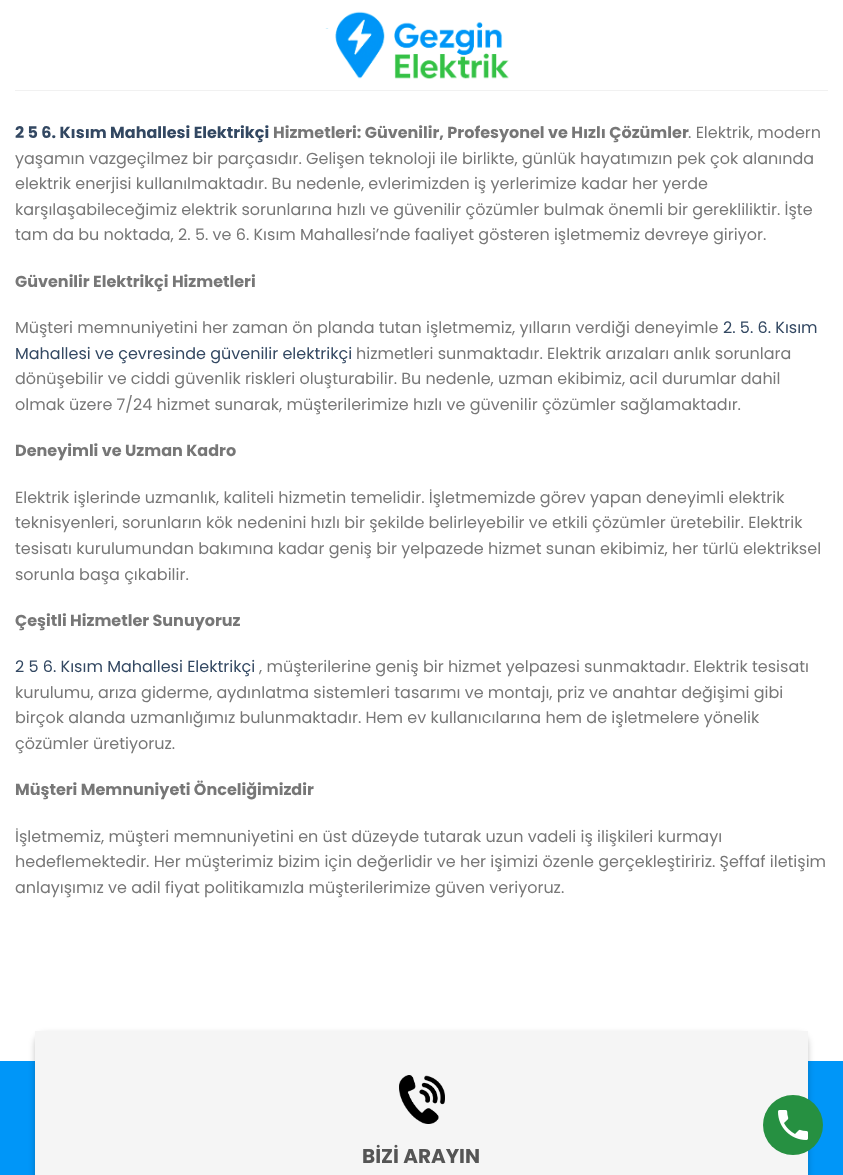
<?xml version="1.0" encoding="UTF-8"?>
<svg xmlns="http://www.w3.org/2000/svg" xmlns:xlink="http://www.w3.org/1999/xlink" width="843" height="1175">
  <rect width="100%" height="100%" fill="#ffffff" />
  <image x="325" y="11" width="184" height="68" xlink:href="image1.png" />
  <rect x="15" y="90" width="813" height="1" fill="#f1f1f1" />
  <rect y="1061" width="843" height="114" fill="#0096f8" />
  <rect x="35" y="1034" width="773" height="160" rx="10" fill="#000000" fill-opacity="0.23" filter="blur(3px)" />
  <rect x="35" y="1031" width="773" height="144" fill="#f5f5f5" />
  <image x="399" y="1075" width="46" height="49" xlink:href="image2.png" />
  <circle cx="793" cy="1125" r="30" fill="#269041" />
  <image x="778" y="1110" width="30" height="30" xlink:href="image3.png" />
  <text x="15" y="138" style="font-family: Poppins; font-size: 16px; font-weight: bold; fill: #334862">2 5 6. Kısım Mahallesi Elektrikçi</text>
  <text x="273" y="138" style="font-family: Poppins; font-size: 16px; font-weight: bold; fill: #777777">Hizmetleri: Güvenilir, Profesyonel ve Hızlı Çözümler</text>
  <text x="688" y="138" style="font-family: Poppins; font-size: 16px; fill: #777777">. Elektrik, modern</text>
  <text x="15" y="164" style="font-family: Poppins; font-size: 16px; fill: #777777">yaşamın vazgeçilmez bir parçasıdır. Gelişen teknoloji ile birlikte, günlük hayatımızın pek çok alanında</text>
  <text x="15" y="189" style="font-family: Poppins; font-size: 16px; fill: #777777">elektrik enerjisi kullanılmaktadır. Bu nedenle, evlerimizden iş yerlerimize kadar her yerde</text>
  <text x="15" y="215" style="font-family: Poppins; font-size: 16px; fill: #777777">karşılaşabileceğimiz elektrik sorunlarına hızlı ve güvenilir çözümler bulmak önemli bir gerekliliktir. İşte</text>
  <text x="15" y="240" style="font-family: Poppins; font-size: 16px; fill: #777777">tam da bu noktada, 2. 5. ve 6. Kısım Mahallesi’nde faaliyet gösteren işletmemiz devreye giriyor.</text>
  <text x="15" y="287" style="font-family: Poppins; font-size: 16px; font-weight: bold; fill: #777777">Güvenilir Elektrikçi Hizmetleri</text>
  <text x="15" y="333" style="font-family: Poppins; font-size: 16px; fill: #777777">Müşteri memnuniyetini her zaman ön planda tutan işletmemiz, yılların verdiği deneyimle</text>
  <text x="723" y="333" style="font-family: Poppins; font-size: 16px; fill: #334862">2. 5. 6. Kısım</text>
  <text x="15" y="359" style="font-family: Poppins; font-size: 16px; fill: #334862">Mahallesi ve çevresinde güvenilir elektrikçi</text>
  <text x="356" y="359" style="font-family: Poppins; font-size: 16px; fill: #777777">hizmetleri sunmaktadır. Elektrik arızaları anlık sorunlara</text>
  <text x="15" y="384" style="font-family: Poppins; font-size: 16px; fill: #777777">dönüşebilir ve ciddi güvenlik riskleri oluşturabilir. Bu nedenle, uzman ekibimiz, acil durumlar dahil</text>
  <text x="15" y="410" style="font-family: Poppins; font-size: 16px; fill: #777777">olmak üzere 7/24 hizmet sunarak, müşterilerimize hızlı ve güvenilir çözümler sağlamaktadır.</text>
  <text x="15" y="456" style="font-family: Poppins; font-size: 16px; font-weight: bold; fill: #777777">Deneyimli ve Uzman Kadro</text>
  <text x="15" y="503" style="font-family: Poppins; font-size: 16px; fill: #777777">Elektrik işlerinde uzmanlık, kaliteli hizmetin temelidir. İşletmemizde görev yapan deneyimli elektrik</text>
  <text x="15" y="528" style="font-family: Poppins; font-size: 16px; fill: #777777">teknisyenleri, sorunların kök nedenini hızlı bir şekilde belirleyebilir ve etkili çözümler üretebilir. Elektrik</text>
  <text x="15" y="554" style="font-family: Poppins; font-size: 16px; fill: #777777">tesisatı kurulumundan bakımına kadar geniş bir yelpazede hizmet sunan ekibimiz, her türlü elektriksel</text>
  <text x="15" y="580" style="font-family: Poppins; font-size: 16px; fill: #777777">sorunla başa çıkabilir.</text>
  <text x="15" y="626" style="font-family: Poppins; font-size: 16px; font-weight: bold; fill: #777777">Çeşitli Hizmetler Sunuyoruz</text>
  <text x="15" y="672" style="font-family: Poppins; font-size: 16px; fill: #334862">2 5 6. Kısım Mahallesi Elektrikçi</text>
  <text x="259" y="672" style="font-family: Poppins; font-size: 16px; fill: #777777">, müşterilerine geniş bir hizmet yelpazesi sunmaktadır. Elektrik tesisatı</text>
  <text x="15" y="698" style="font-family: Poppins; font-size: 16px; fill: #777777">kurulumu, arıza giderme, aydınlatma sistemleri tasarımı ve montajı, priz ve anahtar değişimi gibi</text>
  <text x="15" y="723" style="font-family: Poppins; font-size: 16px; fill: #777777">birçok alanda uzmanlığımız bulunmaktadır. Hem ev kullanıcılarına hem de işletmelere yönelik</text>
  <text x="15" y="749" style="font-family: Poppins; font-size: 16px; fill: #777777">çözümler üretiyoruz.</text>
  <text x="15" y="795" style="font-family: Poppins; font-size: 16px; font-weight: bold; fill: #777777">Müşteri Memnuniyeti Önceliğimizdir</text>
  <text x="15" y="842" style="font-family: Poppins; font-size: 16px; fill: #777777">İşletmemiz, müşteri memnuniyetini en üst düzeyde tutarak uzun vadeli iş ilişkileri kurmayı</text>
  <text x="15" y="867" style="font-family: Poppins; font-size: 16px; fill: #777777">hedeflemektedir. Her müşterimiz bizim için değerlidir ve her işimizi özenle gerçekleştiririz. Şeffaf iletişim</text>
  <text x="15" y="893" style="font-family: Poppins; font-size: 16px; fill: #777777">anlayışımız ve adil fiyat politikamızla müşterilerimize güven veriyoruz.</text>
  <text x="362" y="1163" style="font-family: Poppins; font-size: 20px; font-weight: bold; fill: #555555">BİZİ ARAYIN</text>
</svg>
